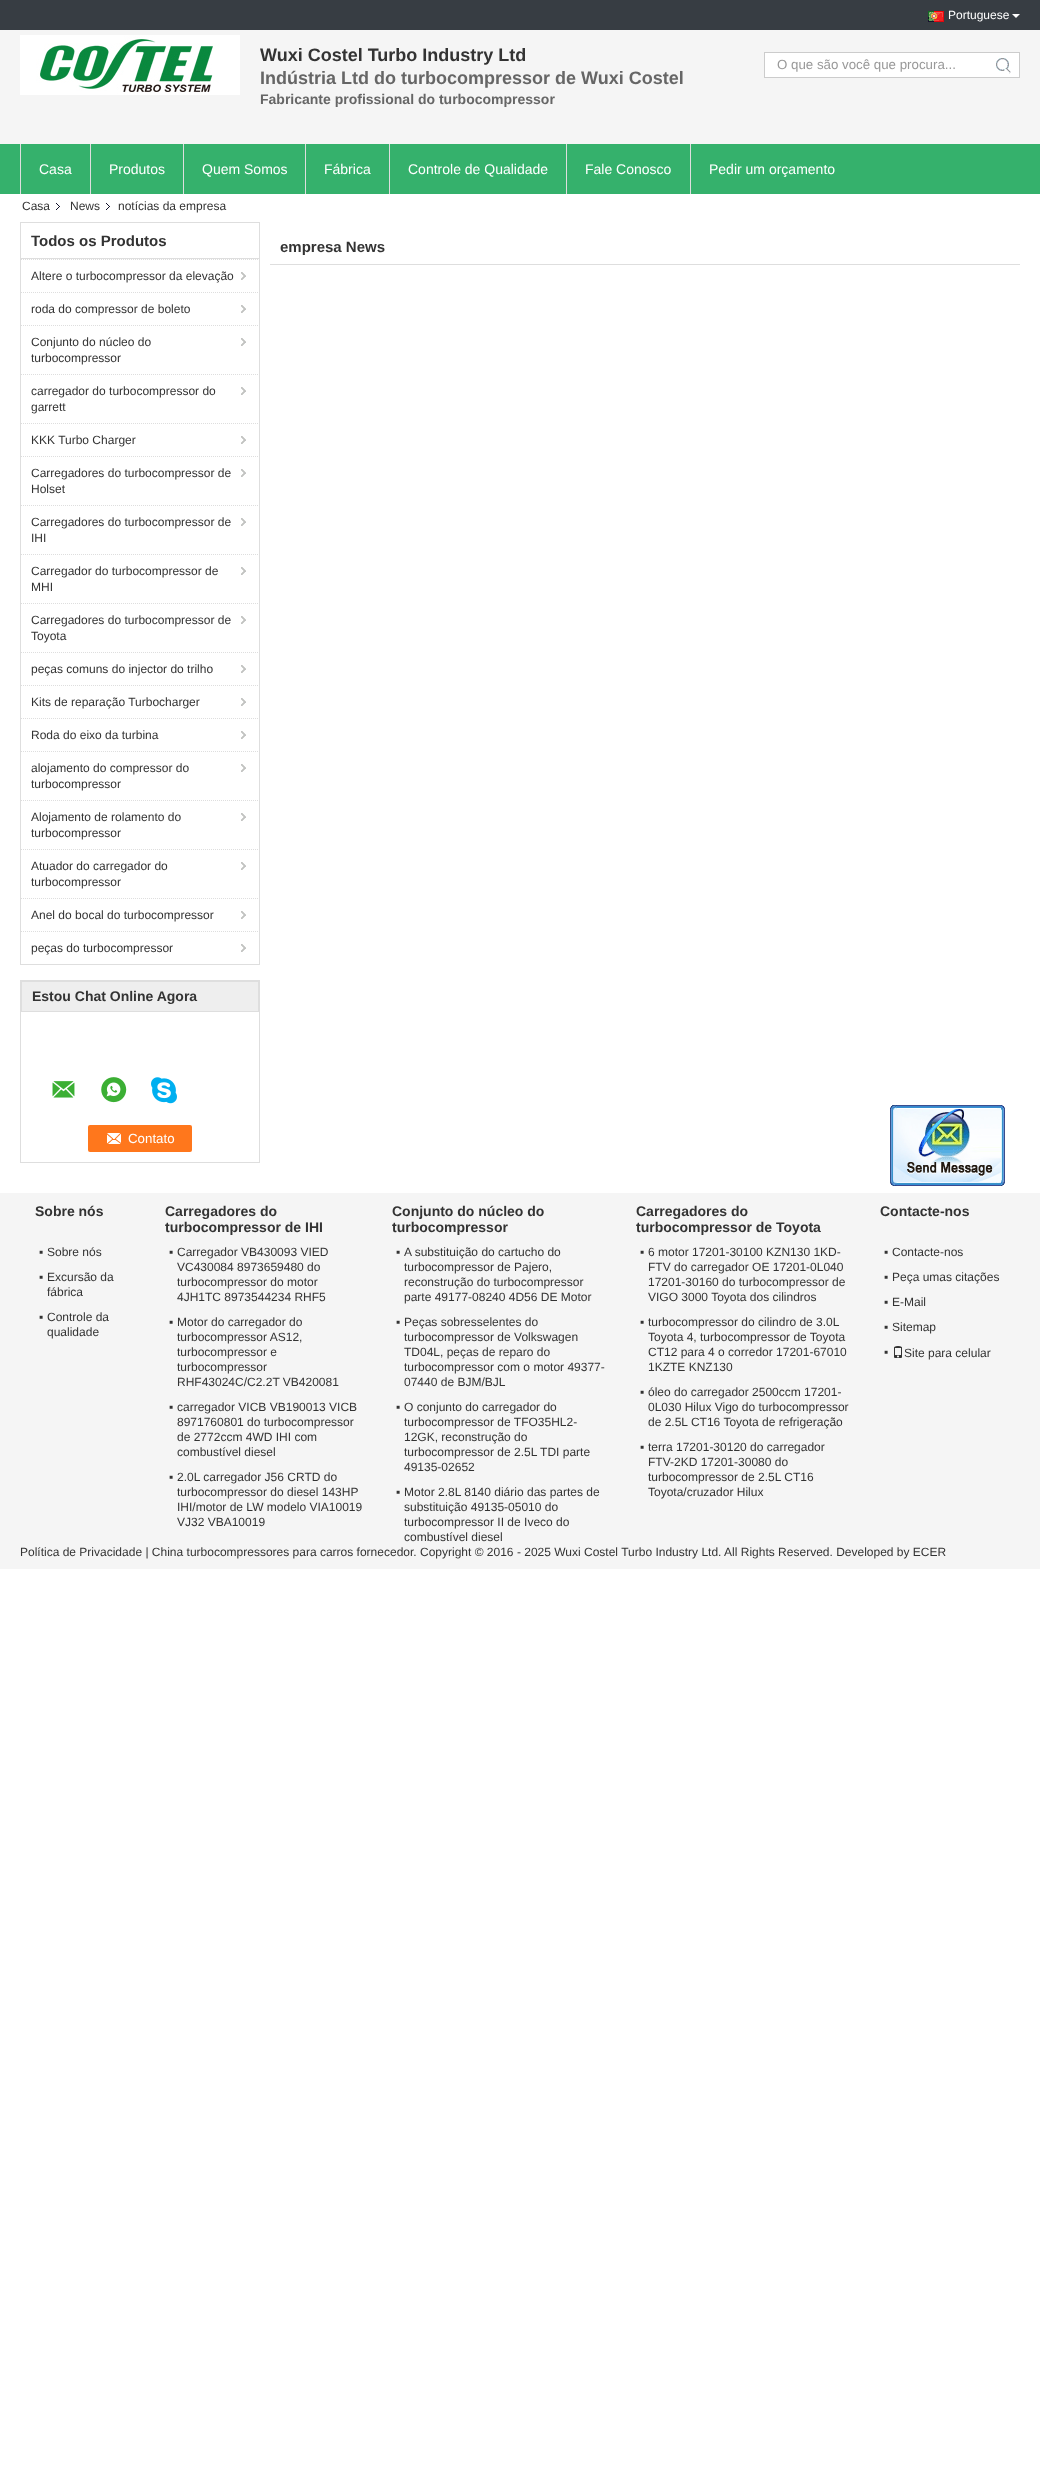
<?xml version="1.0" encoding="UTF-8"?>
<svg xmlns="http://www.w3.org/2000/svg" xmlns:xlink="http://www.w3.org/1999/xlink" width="1040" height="2483">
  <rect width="100%" height="100%" fill="#ffffff" />
  <rect y="30" width="1040" height="114" fill="#f5f5f5" />
  <rect width="1040" height="30" fill="#373d43" />
  <image x="928" y="11" width="16" height="11" xlink:href="image1.png" />
  <path d="M 1012 14 h 8 l -4 4 z" fill="#ffffff" />
  <image x="20" y="35" width="220" height="60" xlink:href="image2.png" />
  <rect x="765" y="53" width="254" height="24" fill="#ffffff" />
  <rect x="764" y="52" width="256" height="1" fill="#cccccc" />
  <rect x="764" y="77" width="231" height="1" fill="#cccccc" />
  <rect x="764" y="52" width="1" height="26" fill="#cccccc" />
  <image x="996" y="58" width="15" height="16" xlink:href="image3.png" />
  <rect x="1019" y="52" width="1" height="26" fill="#cccccc" />
  <rect x="995" y="77" width="25" height="1" fill="#cccccc" />
  <rect y="144" width="1040" height="50" fill="#35b16c" />
  <rect x="20" y="144" width="1" height="50" fill="#dedede" />
  <rect x="90" y="144" width="1" height="50" fill="#dedede" />
  <rect x="183" y="144" width="1" height="50" fill="#dedede" />
  <rect x="305" y="144" width="1" height="50" fill="#dedede" />
  <rect x="389" y="144" width="1" height="50" fill="#dedede" />
  <rect x="566" y="144" width="1" height="50" fill="#dedede" />
  <rect x="690" y="144" width="1" height="50" fill="#dedede" />
  <image x="56" y="203" width="4" height="7" xlink:href="image4.png" />
  <image x="106" y="203" width="4" height="7" xlink:href="image4.png" />
  <rect x="20.5" y="222.5" width="239" height="742" fill="none" stroke="#dedede" />
  <rect x="21" y="258" width="238" height="1" fill="#dedede" />
  <path d="M 21 259.5 h 238" fill="none" stroke="#dedede" stroke-dasharray="1 1" />
  <image x="241" y="272" width="5" height="8" xlink:href="image5.png" />
  <path d="M 21 292.5 h 238" fill="none" stroke="#dedede" stroke-dasharray="1 1" />
  <image x="241" y="305" width="5" height="8" xlink:href="image5.png" />
  <path d="M 21 325.5 h 238" fill="none" stroke="#dedede" stroke-dasharray="1 1" />
  <image x="241" y="338" width="5" height="8" xlink:href="image5.png" />
  <path d="M 21 374.5 h 238" fill="none" stroke="#dedede" stroke-dasharray="1 1" />
  <image x="241" y="387" width="5" height="8" xlink:href="image5.png" />
  <path d="M 21 423.5 h 238" fill="none" stroke="#dedede" stroke-dasharray="1 1" />
  <image x="241" y="436" width="5" height="8" xlink:href="image5.png" />
  <path d="M 21 456.5 h 238" fill="none" stroke="#dedede" stroke-dasharray="1 1" />
  <image x="241" y="469" width="5" height="8" xlink:href="image5.png" />
  <path d="M 21 505.5 h 238" fill="none" stroke="#dedede" stroke-dasharray="1 1" />
  <image x="241" y="518" width="5" height="8" xlink:href="image5.png" />
  <path d="M 21 554.5 h 238" fill="none" stroke="#dedede" stroke-dasharray="1 1" />
  <image x="241" y="567" width="5" height="8" xlink:href="image5.png" />
  <path d="M 21 603.5 h 238" fill="none" stroke="#dedede" stroke-dasharray="1 1" />
  <image x="241" y="616" width="5" height="8" xlink:href="image5.png" />
  <path d="M 21 652.5 h 238" fill="none" stroke="#dedede" stroke-dasharray="1 1" />
  <image x="241" y="665" width="5" height="8" xlink:href="image5.png" />
  <path d="M 21 685.5 h 238" fill="none" stroke="#dedede" stroke-dasharray="1 1" />
  <image x="241" y="698" width="5" height="8" xlink:href="image5.png" />
  <path d="M 21 718.5 h 238" fill="none" stroke="#dedede" stroke-dasharray="1 1" />
  <image x="241" y="731" width="5" height="8" xlink:href="image5.png" />
  <path d="M 21 751.5 h 238" fill="none" stroke="#dedede" stroke-dasharray="1 1" />
  <image x="241" y="764" width="5" height="8" xlink:href="image5.png" />
  <path d="M 21 800.5 h 238" fill="none" stroke="#dedede" stroke-dasharray="1 1" />
  <image x="241" y="813" width="5" height="8" xlink:href="image5.png" />
  <path d="M 21 849.5 h 238" fill="none" stroke="#dedede" stroke-dasharray="1 1" />
  <image x="241" y="862" width="5" height="8" xlink:href="image5.png" />
  <path d="M 21 898.5 h 238" fill="none" stroke="#dedede" stroke-dasharray="1 1" />
  <image x="241" y="911" width="5" height="8" xlink:href="image5.png" />
  <path d="M 21 931.5 h 238" fill="none" stroke="#dedede" stroke-dasharray="1 1" />
  <image x="241" y="944" width="5" height="8" xlink:href="image5.png" />
  <rect x="20.5" y="980.5" width="239" height="182" fill="none" stroke="#dedede" />
  <rect x="21.5" y="981.5" width="237" height="30" fill="#eeeeee" stroke="#dedede" />
  <image x="52" y="1081" width="23" height="17" xlink:href="image6.png" />
  <image x="101" y="1077" width="26" height="26" xlink:href="image7.png" />
  <image x="151" y="1077" width="26" height="27" xlink:href="image8.png" />
  <rect x="88" y="1125" width="104" height="27" rx="2" fill="#ff771c" />
  <image x="107" y="1133" width="14" height="11" xlink:href="image9.png" />
  <rect x="270" y="264" width="750" height="1" fill="#dedede" />
  <image x="890" y="1105" width="115" height="81" xlink:href="image10.png" />
  <rect y="1193" width="1040" height="376" fill="#f5f5f5" />
  <image x="894" y="1346" width="8" height="12" xlink:href="image11.png" />
  <text x="948" y="19" style="font-family: Liberation Sans; font-size: 12px; fill: #ffffff">Portuguese</text>
  <text x="260" y="61" style="font-family: Liberation Sans; font-size: 18px; font-weight: bold; fill: #333333">Wuxi Costel Turbo Industry Ltd</text>
  <text x="260" y="84" style="font-family: Liberation Sans; font-size: 18px; font-weight: bold; fill: #666666">Indústria Ltd do turbocompressor de Wuxi Costel</text>
  <text x="260" y="104" style="font-family: Liberation Sans; font-size: 14px; font-weight: bold; fill: #666666">Fabricante profissional do turbocompressor</text>
  <text x="777" y="69" style="font-family: Liberation Sans; font-size: 13.3px; fill: #999999">O que são você que procura...</text>
  <text x="39" y="174" style="font-family: Liberation Sans; font-size: 14px; fill: #ffffff">Casa</text>
  <text x="109" y="174" style="font-family: Liberation Sans; font-size: 14px; fill: #ffffff">Produtos</text>
  <text x="202" y="174" style="font-family: Liberation Sans; font-size: 14px; fill: #ffffff">Quem Somos</text>
  <text x="324" y="174" style="font-family: Liberation Sans; font-size: 14px; fill: #ffffff">Fábrica</text>
  <text x="408" y="174" style="font-family: Liberation Sans; font-size: 14px; fill: #ffffff">Controle de Qualidade</text>
  <text x="585" y="174" style="font-family: Liberation Sans; font-size: 14px; fill: #ffffff">Fale Conosco</text>
  <text x="709" y="174" style="font-family: Liberation Sans; font-size: 14px; fill: #ffffff">Pedir um orçamento</text>
  <text x="22" y="210" style="font-family: Liberation Sans; font-size: 12px; fill: #333333">Casa</text>
  <text x="70" y="210" style="font-family: Liberation Sans; font-size: 12px; fill: #333333">News</text>
  <text x="118" y="210" style="font-family: Liberation Sans; font-size: 12px; fill: #333333">notícias da empresa</text>
  <text x="31" y="246" style="font-family: Liberation Sans; font-size: 15px; font-weight: bold; fill: #333333">Todos os Produtos</text>
  <text x="31" y="280" style="font-family: Liberation Sans; font-size: 12px; fill: #333333">Altere o turbocompressor da elevação</text>
  <text x="31" y="313" style="font-family: Liberation Sans; font-size: 12px; fill: #333333">roda do compressor de boleto</text>
  <text x="31" y="346" style="font-family: Liberation Sans; font-size: 12px; fill: #333333">Conjunto do núcleo do</text>
  <text x="31" y="362" style="font-family: Liberation Sans; font-size: 12px; fill: #333333">turbocompressor</text>
  <text x="31" y="395" style="font-family: Liberation Sans; font-size: 12px; fill: #333333">carregador do turbocompressor do</text>
  <text x="31" y="411" style="font-family: Liberation Sans; font-size: 12px; fill: #333333">garrett</text>
  <text x="31" y="444" style="font-family: Liberation Sans; font-size: 12px; fill: #333333">KKK Turbo Charger</text>
  <text x="31" y="477" style="font-family: Liberation Sans; font-size: 12px; fill: #333333">Carregadores do turbocompressor de</text>
  <text x="31" y="493" style="font-family: Liberation Sans; font-size: 12px; fill: #333333">Holset</text>
  <text x="31" y="526" style="font-family: Liberation Sans; font-size: 12px; fill: #333333">Carregadores do turbocompressor de</text>
  <text x="31" y="542" style="font-family: Liberation Sans; font-size: 12px; fill: #333333">IHI</text>
  <text x="31" y="575" style="font-family: Liberation Sans; font-size: 12px; fill: #333333">Carregador do turbocompressor de</text>
  <text x="31" y="591" style="font-family: Liberation Sans; font-size: 12px; fill: #333333">MHI</text>
  <text x="31" y="624" style="font-family: Liberation Sans; font-size: 12px; fill: #333333">Carregadores do turbocompressor de</text>
  <text x="31" y="640" style="font-family: Liberation Sans; font-size: 12px; fill: #333333">Toyota</text>
  <text x="31" y="673" style="font-family: Liberation Sans; font-size: 12px; fill: #333333">peças comuns do injector do trilho</text>
  <text x="31" y="706" style="font-family: Liberation Sans; font-size: 12px; fill: #333333">Kits de reparação Turbocharger</text>
  <text x="31" y="739" style="font-family: Liberation Sans; font-size: 12px; fill: #333333">Roda do eixo da turbina</text>
  <text x="31" y="772" style="font-family: Liberation Sans; font-size: 12px; fill: #333333">alojamento do compressor do</text>
  <text x="31" y="788" style="font-family: Liberation Sans; font-size: 12px; fill: #333333">turbocompressor</text>
  <text x="31" y="821" style="font-family: Liberation Sans; font-size: 12px; fill: #333333">Alojamento de rolamento do</text>
  <text x="31" y="837" style="font-family: Liberation Sans; font-size: 12px; fill: #333333">turbocompressor</text>
  <text x="31" y="870" style="font-family: Liberation Sans; font-size: 12px; fill: #333333">Atuador do carregador do</text>
  <text x="31" y="886" style="font-family: Liberation Sans; font-size: 12px; fill: #333333">turbocompressor</text>
  <text x="31" y="919" style="font-family: Liberation Sans; font-size: 12px; fill: #333333">Anel do bocal do turbocompressor</text>
  <text x="31" y="952" style="font-family: Liberation Sans; font-size: 12px; fill: #333333">peças do turbocompressor</text>
  <text x="32" y="1001" style="font-family: Liberation Sans; font-size: 14px; font-weight: bold; fill: #333333">Estou Chat Online Agora</text>
  <text x="128" y="1143" style="font-family: Liberation Sans; font-size: 13.3px; fill: #ffffff">Contato</text>
  <text x="280" y="252" style="font-family: Liberation Sans; font-size: 15px; font-weight: bold; fill: #333333">empresa News</text>
  <text x="35" y="1216" style="font-family: Liberation Sans; font-size: 14px; font-weight: bold; fill: #333333">Sobre nós</text>
  <text x="39" y="1256" style="font-family: Liberation Sans; font-size: 12px; fill: #333333">▪</text>
  <text x="47" y="1256" style="font-family: Liberation Sans; font-size: 12px; fill: #333333">Sobre nós</text>
  <text x="39" y="1281" style="font-family: Liberation Sans; font-size: 12px; fill: #333333">▪</text>
  <text x="47" y="1281" style="font-family: Liberation Sans; font-size: 12px; fill: #333333">Excursão da</text>
  <text x="47" y="1296" style="font-family: Liberation Sans; font-size: 12px; fill: #333333">fábrica</text>
  <text x="39" y="1321" style="font-family: Liberation Sans; font-size: 12px; fill: #333333">▪</text>
  <text x="47" y="1321" style="font-family: Liberation Sans; font-size: 12px; fill: #333333">Controle da</text>
  <text x="47" y="1336" style="font-family: Liberation Sans; font-size: 12px; fill: #333333">qualidade</text>
  <text x="165" y="1216" style="font-family: Liberation Sans; font-size: 14px; font-weight: bold; fill: #333333">Carregadores do</text>
  <text x="165" y="1232" style="font-family: Liberation Sans; font-size: 14px; font-weight: bold; fill: #333333">turbocompressor de IHI</text>
  <text x="169" y="1256" style="font-family: Liberation Sans; font-size: 12px; fill: #333333">▪</text>
  <text x="177" y="1256" style="font-family: Liberation Sans; font-size: 12px; fill: #333333">Carregador VB430093 VIED</text>
  <text x="177" y="1271" style="font-family: Liberation Sans; font-size: 12px; fill: #333333">VC430084 8973659480 do</text>
  <text x="177" y="1286" style="font-family: Liberation Sans; font-size: 12px; fill: #333333">turbocompressor do motor</text>
  <text x="177" y="1301" style="font-family: Liberation Sans; font-size: 12px; fill: #333333">4JH1TC 8973544234 RHF5</text>
  <text x="169" y="1326" style="font-family: Liberation Sans; font-size: 12px; fill: #333333">▪</text>
  <text x="177" y="1326" style="font-family: Liberation Sans; font-size: 12px; fill: #333333">Motor do carregador do</text>
  <text x="177" y="1341" style="font-family: Liberation Sans; font-size: 12px; fill: #333333">turbocompressor AS12,</text>
  <text x="177" y="1356" style="font-family: Liberation Sans; font-size: 12px; fill: #333333">turbocompressor e</text>
  <text x="177" y="1371" style="font-family: Liberation Sans; font-size: 12px; fill: #333333">turbocompressor</text>
  <text x="177" y="1386" style="font-family: Liberation Sans; font-size: 12px; fill: #333333">RHF43024C/C2.2T VB420081</text>
  <text x="169" y="1411" style="font-family: Liberation Sans; font-size: 12px; fill: #333333">▪</text>
  <text x="177" y="1411" style="font-family: Liberation Sans; font-size: 12px; fill: #333333">carregador VICB VB190013 VICB</text>
  <text x="177" y="1426" style="font-family: Liberation Sans; font-size: 12px; fill: #333333">8971760801 do turbocompressor</text>
  <text x="177" y="1441" style="font-family: Liberation Sans; font-size: 12px; fill: #333333">de 2772ccm 4WD IHI com</text>
  <text x="177" y="1456" style="font-family: Liberation Sans; font-size: 12px; fill: #333333">combustível diesel</text>
  <text x="169" y="1481" style="font-family: Liberation Sans; font-size: 12px; fill: #333333">▪</text>
  <text x="177" y="1481" style="font-family: Liberation Sans; font-size: 12px; fill: #333333">2.0L carregador J56 CRTD do</text>
  <text x="177" y="1496" style="font-family: Liberation Sans; font-size: 12px; fill: #333333">turbocompressor do diesel 143HP</text>
  <text x="177" y="1511" style="font-family: Liberation Sans; font-size: 12px; fill: #333333">IHI/motor de LW modelo VIA10019</text>
  <text x="177" y="1526" style="font-family: Liberation Sans; font-size: 12px; fill: #333333">VJ32 VBA10019</text>
  <text x="392" y="1216" style="font-family: Liberation Sans; font-size: 14px; font-weight: bold; fill: #333333">Conjunto do núcleo do</text>
  <text x="392" y="1232" style="font-family: Liberation Sans; font-size: 14px; font-weight: bold; fill: #333333">turbocompressor</text>
  <text x="396" y="1256" style="font-family: Liberation Sans; font-size: 12px; fill: #333333">▪</text>
  <text x="404" y="1256" style="font-family: Liberation Sans; font-size: 12px; fill: #333333">A substituição do cartucho do</text>
  <text x="404" y="1271" style="font-family: Liberation Sans; font-size: 12px; fill: #333333">turbocompressor de Pajero,</text>
  <text x="404" y="1286" style="font-family: Liberation Sans; font-size: 12px; fill: #333333">reconstrução do turbocompressor</text>
  <text x="404" y="1301" style="font-family: Liberation Sans; font-size: 12px; fill: #333333">parte 49177-08240 4D56 DE Motor</text>
  <text x="396" y="1326" style="font-family: Liberation Sans; font-size: 12px; fill: #333333">▪</text>
  <text x="404" y="1326" style="font-family: Liberation Sans; font-size: 12px; fill: #333333">Peças sobresselentes do</text>
  <text x="404" y="1341" style="font-family: Liberation Sans; font-size: 12px; fill: #333333">turbocompressor de Volkswagen</text>
  <text x="404" y="1356" style="font-family: Liberation Sans; font-size: 12px; fill: #333333">TD04L, peças de reparo do</text>
  <text x="404" y="1371" style="font-family: Liberation Sans; font-size: 12px; fill: #333333">turbocompressor com o motor 49377-</text>
  <text x="404" y="1386" style="font-family: Liberation Sans; font-size: 12px; fill: #333333">07440 de BJM/BJL</text>
  <text x="396" y="1411" style="font-family: Liberation Sans; font-size: 12px; fill: #333333">▪</text>
  <text x="404" y="1411" style="font-family: Liberation Sans; font-size: 12px; fill: #333333">O conjunto do carregador do</text>
  <text x="404" y="1426" style="font-family: Liberation Sans; font-size: 12px; fill: #333333">turbocompressor de TFO35HL2-</text>
  <text x="404" y="1441" style="font-family: Liberation Sans; font-size: 12px; fill: #333333">12GK, reconstrução do</text>
  <text x="404" y="1456" style="font-family: Liberation Sans; font-size: 12px; fill: #333333">turbocompressor de 2.5L TDI parte</text>
  <text x="404" y="1471" style="font-family: Liberation Sans; font-size: 12px; fill: #333333">49135-02652</text>
  <text x="396" y="1496" style="font-family: Liberation Sans; font-size: 12px; fill: #333333">▪</text>
  <text x="404" y="1496" style="font-family: Liberation Sans; font-size: 12px; fill: #333333">Motor 2.8L 8140 diário das partes de</text>
  <text x="404" y="1511" style="font-family: Liberation Sans; font-size: 12px; fill: #333333">substituição 49135-05010 do</text>
  <text x="404" y="1526" style="font-family: Liberation Sans; font-size: 12px; fill: #333333">turbocompressor II de Iveco do</text>
  <text x="404" y="1541" style="font-family: Liberation Sans; font-size: 12px; fill: #333333">combustível diesel</text>
  <text x="636" y="1216" style="font-family: Liberation Sans; font-size: 14px; font-weight: bold; fill: #333333">Carregadores do</text>
  <text x="636" y="1232" style="font-family: Liberation Sans; font-size: 14px; font-weight: bold; fill: #333333">turbocompressor de Toyota</text>
  <text x="640" y="1256" style="font-family: Liberation Sans; font-size: 12px; fill: #333333">▪</text>
  <text x="648" y="1256" style="font-family: Liberation Sans; font-size: 12px; fill: #333333">6 motor 17201-30100 KZN130 1KD-</text>
  <text x="648" y="1271" style="font-family: Liberation Sans; font-size: 12px; fill: #333333">FTV do carregador OE 17201-0L040</text>
  <text x="648" y="1286" style="font-family: Liberation Sans; font-size: 12px; fill: #333333">17201-30160 do turbocompressor de</text>
  <text x="648" y="1301" style="font-family: Liberation Sans; font-size: 12px; fill: #333333">VIGO 3000 Toyota dos cilindros</text>
  <text x="640" y="1326" style="font-family: Liberation Sans; font-size: 12px; fill: #333333">▪</text>
  <text x="648" y="1326" style="font-family: Liberation Sans; font-size: 12px; fill: #333333">turbocompressor do cilindro de 3.0L</text>
  <text x="648" y="1341" style="font-family: Liberation Sans; font-size: 12px; fill: #333333">Toyota 4, turbocompressor de Toyota</text>
  <text x="648" y="1356" style="font-family: Liberation Sans; font-size: 12px; fill: #333333">CT12 para 4 o corredor 17201-67010</text>
  <text x="648" y="1371" style="font-family: Liberation Sans; font-size: 12px; fill: #333333">1KZTE KNZ130</text>
  <text x="640" y="1396" style="font-family: Liberation Sans; font-size: 12px; fill: #333333">▪</text>
  <text x="648" y="1396" style="font-family: Liberation Sans; font-size: 12px; fill: #333333">óleo do carregador 2500ccm 17201-</text>
  <text x="648" y="1411" style="font-family: Liberation Sans; font-size: 12px; fill: #333333">0L030 Hilux Vigo do turbocompressor</text>
  <text x="648" y="1426" style="font-family: Liberation Sans; font-size: 12px; fill: #333333">de 2.5L CT16 Toyota de refrigeração</text>
  <text x="640" y="1451" style="font-family: Liberation Sans; font-size: 12px; fill: #333333">▪</text>
  <text x="648" y="1451" style="font-family: Liberation Sans; font-size: 12px; fill: #333333">terra 17201-30120 do carregador</text>
  <text x="648" y="1466" style="font-family: Liberation Sans; font-size: 12px; fill: #333333">FTV-2KD 17201-30080 do</text>
  <text x="648" y="1481" style="font-family: Liberation Sans; font-size: 12px; fill: #333333">turbocompressor de 2.5L CT16</text>
  <text x="648" y="1496" style="font-family: Liberation Sans; font-size: 12px; fill: #333333">Toyota/cruzador Hilux</text>
  <text x="880" y="1216" style="font-family: Liberation Sans; font-size: 14px; font-weight: bold; fill: #333333">Contacte-nos</text>
  <text x="884" y="1256" style="font-family: Liberation Sans; font-size: 12px; fill: #333333">▪</text>
  <text x="892" y="1256" style="font-family: Liberation Sans; font-size: 12px; fill: #333333">Contacte-nos</text>
  <text x="884" y="1281" style="font-family: Liberation Sans; font-size: 12px; fill: #333333">▪</text>
  <text x="892" y="1281" style="font-family: Liberation Sans; font-size: 12px; fill: #333333">Peça umas citações</text>
  <text x="884" y="1306" style="font-family: Liberation Sans; font-size: 12px; fill: #333333">▪</text>
  <text x="892" y="1306" style="font-family: Liberation Sans; font-size: 12px; fill: #333333">E-Mail</text>
  <text x="884" y="1331" style="font-family: Liberation Sans; font-size: 12px; fill: #333333">▪</text>
  <text x="892" y="1331" style="font-family: Liberation Sans; font-size: 12px; fill: #333333">Sitemap</text>
  <text x="884" y="1356" style="font-family: Liberation Sans; font-size: 12px; fill: #333333">▪</text>
  <text x="904" y="1357" style="font-family: Liberation Sans; font-size: 12px; fill: #333333">Site para celular</text>
  <text x="20" y="1556" style="font-family: Liberation Sans; font-size: 12px; fill: #333333">Política de Privacidade | China turbocompressores para carros fornecedor. Copyright © 2016 - 2025 Wuxi Costel Turbo Industry Ltd. All Rights Reserved. Developed by ECER</text>
</svg>
